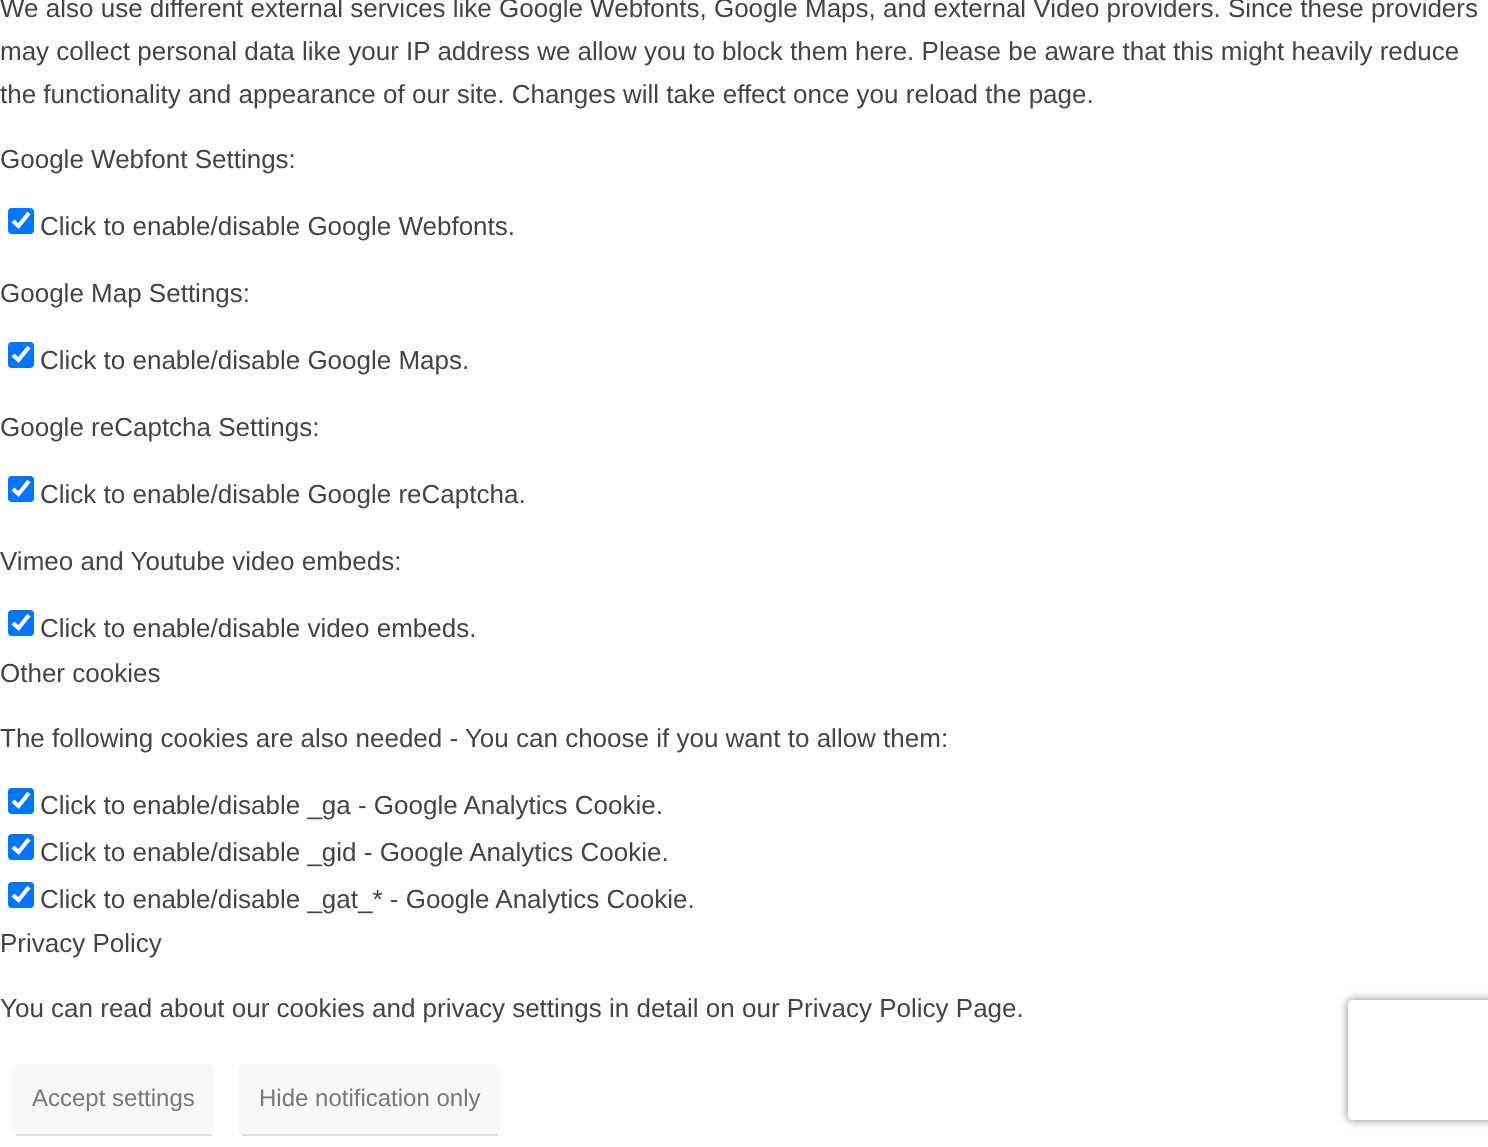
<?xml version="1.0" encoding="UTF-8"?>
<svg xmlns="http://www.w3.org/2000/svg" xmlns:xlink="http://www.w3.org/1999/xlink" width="1488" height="1147">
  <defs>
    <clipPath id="clip1"><path d="M 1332 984 h 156 v 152 h -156 z m 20 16 h 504 c 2 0 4 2 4 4 v 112 c 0 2 -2 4 -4 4 h -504 c -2 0 -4 -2 -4 -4 v -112 c 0 -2 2 -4 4 -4 z" clip-rule="evenodd" /></clipPath>
  </defs>
  <rect width="100%" height="100%" fill="#ffffff" />
  <rect x="8" y="208" width="26" height="26" rx="4" fill="#0075ff" />
  <path d="M 13 221 l 5.5 5 l 10.5 -13" fill="none" stroke="#ffffff" stroke-width="4.2" />
  <rect x="8" y="342" width="26" height="26" rx="4" fill="#0075ff" />
  <path d="M 13 355 l 5.5 5 l 10.5 -13" fill="none" stroke="#ffffff" stroke-width="4.2" />
  <rect x="8" y="476" width="26" height="26" rx="4" fill="#0075ff" />
  <path d="M 13 489 l 5.5 5 l 10.5 -13" fill="none" stroke="#ffffff" stroke-width="4.2" />
  <rect x="8" y="610" width="26" height="26" rx="4" fill="#0075ff" />
  <path d="M 13 623 l 5.5 5 l 10.5 -13" fill="none" stroke="#ffffff" stroke-width="4.2" />
  <rect x="8" y="788" width="26" height="26" rx="4" fill="#0075ff" />
  <path d="M 13 801 l 5.5 5 l 10.5 -13" fill="none" stroke="#ffffff" stroke-width="4.2" />
  <rect x="8" y="834" width="26" height="26" rx="4" fill="#0075ff" />
  <path d="M 13 847 l 5.5 5 l 10.5 -13" fill="none" stroke="#ffffff" stroke-width="4.2" />
  <rect x="8" y="882" width="26" height="26" rx="4" fill="#0075ff" />
  <path d="M 13 895 l 5.5 5 l 10.5 -13" fill="none" stroke="#ffffff" stroke-width="4.2" />
  <rect x="12" y="1064" width="202" height="72" rx="6" fill="#f8f8f8" />
  <rect x="16" y="1134" width="196" height="2" fill="#e1e1e1" />
  <rect x="238" y="1064" width="262" height="72" rx="6" fill="#f8f8f8" />
  <rect x="242" y="1134" width="256" height="2" fill="#e1e1e1" />
  <g clip-path="url(#clip1)">
    <rect x="1348" y="1000" width="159" height="120" rx="4" fill="#808080" filter="blur(5px)" />
  </g>
  <text x="0" y="17" style="font-family: Liberation Sans; font-size: 26px; fill: #444444">We also use different external services like Google Webfonts, Google Maps, and external Video providers. Since these providers</text>
  <text x="0" y="60" style="font-family: Liberation Sans; font-size: 26px; fill: #444444">may collect personal data like your IP address we allow you to block them here. Please be aware that this might heavily reduce</text>
  <text x="0" y="103" style="font-family: Liberation Sans; font-size: 26px; fill: #444444">the functionality and appearance of our site. Changes will take effect once you reload the page.</text>
  <text x="0" y="168" style="font-family: Liberation Sans; font-size: 26px; fill: #444444">Google Webfont Settings:</text>
  <text x="40" y="235" style="font-family: Liberation Sans; font-size: 26px; fill: #444444">Click to enable/disable Google Webfonts.</text>
  <text x="0" y="302" style="font-family: Liberation Sans; font-size: 26px; fill: #444444">Google Map Settings:</text>
  <text x="40" y="369" style="font-family: Liberation Sans; font-size: 26px; fill: #444444">Click to enable/disable Google Maps.</text>
  <text x="0" y="436" style="font-family: Liberation Sans; font-size: 26px; fill: #444444">Google reCaptcha Settings:</text>
  <text x="40" y="503" style="font-family: Liberation Sans; font-size: 26px; fill: #444444">Click to enable/disable Google reCaptcha.</text>
  <text x="0" y="570" style="font-family: Liberation Sans; font-size: 26px; fill: #444444">Vimeo and Youtube video embeds:</text>
  <text x="40" y="637" style="font-family: Liberation Sans; font-size: 26px; fill: #444444">Click to enable/disable video embeds.</text>
  <text x="0" y="682" style="font-family: Liberation Sans; font-size: 26px; fill: #444444">Other cookies</text>
  <text x="0" y="747" style="font-family: Liberation Sans; font-size: 26px; fill: #444444">The following cookies are also needed - You can choose if you want to allow them:</text>
  <text x="40" y="814" style="font-family: Liberation Sans; font-size: 26px; fill: #444444">Click to enable/disable _ga - Google Analytics Cookie.</text>
  <text x="40" y="861" style="font-family: Liberation Sans; font-size: 26px; fill: #444444">Click to enable/disable _gid - Google Analytics Cookie.</text>
  <text x="40" y="908" style="font-family: Liberation Sans; font-size: 26px; fill: #444444">Click to enable/disable _gat_* - Google Analytics Cookie.</text>
  <text x="0" y="952" style="font-family: Liberation Sans; font-size: 26px; fill: #444444">Privacy Policy</text>
  <text x="0" y="1017" style="font-family: Liberation Sans; font-size: 26px; fill: #444444">You can read about our cookies and privacy settings in detail on our Privacy Policy Page.</text>
  <text x="32" y="1106" style="font-family: Liberation Sans; font-size: 24px; fill: #777777">Accept settings</text>
  <text x="259" y="1106" style="font-family: Liberation Sans; font-size: 24px; fill: #777777">Hide notification only</text>
</svg>
